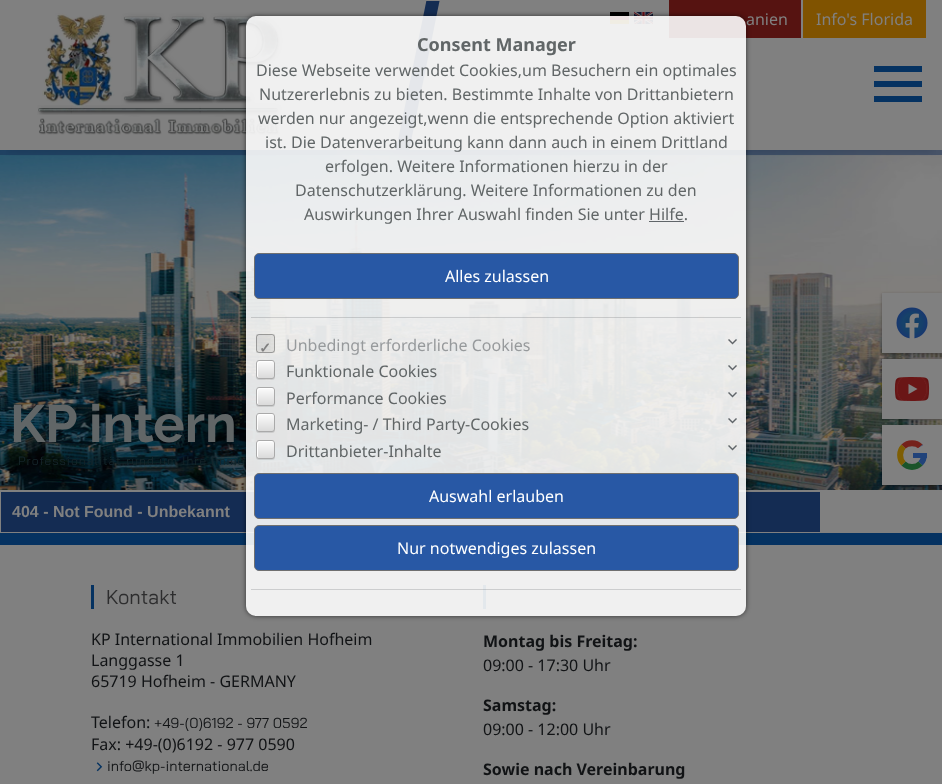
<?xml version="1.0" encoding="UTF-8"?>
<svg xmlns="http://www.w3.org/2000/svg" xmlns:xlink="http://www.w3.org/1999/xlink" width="942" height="784">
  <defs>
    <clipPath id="clip1"><rect x="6" y="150" width="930" height="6" /></clipPath>
    <clipPath id="clip2"><path d="M 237 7 h 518 v 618 h -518 z m 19 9 h 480 c 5.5 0 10 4.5 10 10 v 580 c 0 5.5 -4.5 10 -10 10 h -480 c -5.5 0 -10 -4.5 -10 -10 v -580 c 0 -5.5 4.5 -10 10 -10 z" clip-rule="evenodd" /></clipPath>
    <clipPath id="clip3"><rect x="256" y="360" width="19" height="19" rx="3" /></clipPath>
    <linearGradient id="g1" gradientUnits="userSpaceOnUse" x1="266" y1="361" x2="266" y2="378"><stop offset="0" stop-color="#fcfcfc" /><stop offset="1" stop-color="#dadada" /></linearGradient>
    <clipPath id="clip4"><rect x="256" y="387" width="19" height="19" rx="3" /></clipPath>
    <linearGradient id="g2" gradientUnits="userSpaceOnUse" x1="266" y1="388" x2="266" y2="405"><stop offset="0" stop-color="#fcfcfc" /><stop offset="1" stop-color="#dadada" /></linearGradient>
    <clipPath id="clip5"><rect x="256" y="413" width="19" height="19" rx="3" /></clipPath>
    <linearGradient id="g3" gradientUnits="userSpaceOnUse" x1="266" y1="414" x2="266" y2="431"><stop offset="0" stop-color="#fcfcfc" /><stop offset="1" stop-color="#dadada" /></linearGradient>
    <clipPath id="clip6"><rect x="256" y="440" width="19" height="19" rx="3" /></clipPath>
    <linearGradient id="g4" gradientUnits="userSpaceOnUse" x1="266" y1="441" x2="266" y2="458"><stop offset="0" stop-color="#fcfcfc" /><stop offset="1" stop-color="#dadada" /></linearGradient>
  </defs>
  <rect width="100%" height="100%" fill="#808080" />
  <image x="0" y="150" width="942" height="340" xlink:href="image4.png" />
  <g clip-path="url(#clip1)">
    <rect x="10" y="20" width="922" height="130" fill="#000000" fill-opacity="0.2" filter="blur(5px)" />
  </g>
  <image x="37" y="1" width="403" height="149" xlink:href="image1.png" />
  <image x="610" y="12" width="19" height="12" xlink:href="image2.png" />
  <image x="634" y="12" width="19" height="12" xlink:href="image3.png" />
  <rect x="669" width="132" height="38" fill="#561311" />
  <rect x="803" width="123" height="38" fill="#805300" />
  <rect y="150" width="942" height="5" fill="#142c53" fill-opacity="0.5" />
  <path d="M 874 102 v -6 h 48 v 6 z m 0 -36 h 48 v 6 h -48 z m 0 21 v -6 h 48 v 6 z" fill="#053261" />
  <rect x="22" y="449" width="262" height="24" fill="#191919" fill-opacity="0.09" />
  <rect x="1" y="492" width="819" height="40" fill="#142c53" />
  <rect y="533" width="942" height="12" fill="#053261" />
  <rect x="483" y="585" width="3" height="24" fill="#053261" />
  <g clip-path="url(#clip2)">
    <rect x="246" y="16" width="500" height="600" rx="10" fill="#000000" fill-opacity="0.6" filter="blur(2.5px)" />
  </g>
  <rect x="246" y="16" width="500" height="600" rx="10" fill="#fcfcfc" fill-opacity="0.9" />
  <rect x="254.5" y="253.5" width="484" height="45" rx="4.5" fill="#2858a5" stroke="#707070" />
  <rect x="251" y="317" width="490" height="1" fill="#606569" fill-opacity="0.25" />
  <rect x="256" y="334" width="19" height="19" fill="#000000" fill-opacity="0.06" />
  <rect x="256.5" y="334.5" width="18" height="18" rx="2.5" fill="none" stroke="#000000" stroke-opacity="0.3" />
  <image x="728" y="339" width="9" height="6" xlink:href="image5.png" />
  <rect x="256" y="361" width="19" height="19" rx="3" fill="#000000" fill-opacity="0.1" filter="blur(0.5px)" />
  <g clip-path="url(#clip3)">
    <rect x="256" y="361" width="19" height="17" fill="url(#g1)" />
  </g>
  <path d="M 260 362 h 11 l 3 0.5 c -0.5 -1 -1 -1.5 -2 -1.5 h -13 c -1 0 -2 1 -2 2 v 13 c 0 1 0.5 1.5 1.5 2 l -0.5 -2.5 c 0 -1.5 0 -11 0 -11.5 c 0.5 -1 1 -2 2 -2 z" fill="#ffffff" />
  <rect x="256.5" y="360.5" width="18" height="18" rx="2.5" fill="none" stroke="#aaaaaa" />
  <image x="728" y="365" width="9" height="6" xlink:href="image6.png" />
  <rect x="256" y="388" width="19" height="19" rx="3" fill="#000000" fill-opacity="0.1" filter="blur(0.5px)" />
  <g clip-path="url(#clip4)">
    <rect x="256" y="388" width="19" height="17" fill="url(#g2)" />
  </g>
  <path d="M 260 389 h 11 l 3 0.5 c -0.5 -1 -1 -1.5 -2 -1.5 h -13 c -1 0 -2 1 -2 2 v 13 c 0 1 0.5 1.5 1.5 2 c -1 -1.5 -0.5 -13 -0.5 -14.5 c 0.5 -0.5 1 -1.5 2 -1.5 z" fill="#ffffff" />
  <rect x="256.5" y="387.5" width="18" height="18" rx="2.5" fill="none" stroke="#aaaaaa" />
  <image x="728" y="392" width="9" height="6" xlink:href="image7.png" />
  <rect x="256" y="414" width="19" height="19" rx="3" fill="#000000" fill-opacity="0.1" filter="blur(0.5px)" />
  <g clip-path="url(#clip5)">
    <rect x="256" y="414" width="19" height="17" fill="url(#g3)" />
  </g>
  <path d="M 260 415 h 11 l 3 0.5 c -0.5 -1 -1 -1.5 -2 -1.5 h -13 c -1 0 -2 1 -2 2 v 13 c 0 1 0.5 1.5 1.5 2 c -1 -1.5 -0.5 -13 -0.5 -14.5 c 0.5 -0.5 1 -1.5 2 -1.5 z" fill="#ffffff" />
  <rect x="256.5" y="413.5" width="18" height="18" rx="2.5" fill="none" stroke="#aaaaaa" />
  <image x="728" y="418" width="9" height="6" xlink:href="image8.png" />
  <rect x="256" y="441" width="19" height="19" rx="3" fill="#000000" fill-opacity="0.1" filter="blur(0.5px)" />
  <g clip-path="url(#clip6)">
    <rect x="256" y="441" width="19" height="17" fill="url(#g4)" />
  </g>
  <path d="M 260 442 h 11 l 3 0.5 c -0.5 -1 -1 -1.5 -2 -1.5 h -13 c -1 0 -2 1 -2 2 v 13 c 0 1 0.5 1.5 1.5 2 l -0.5 -2.5 c 0 -1.5 0 -11 0 -11.5 c 0.5 -1 1 -2 2 -2 z" fill="#ffffff" />
  <rect x="256.5" y="440.5" width="18" height="18" rx="2.5" fill="none" stroke="#aaaaaa" />
  <image x="728" y="445" width="9" height="6" xlink:href="image9.png" />
  <rect x="254.5" y="473.5" width="484" height="45" rx="4.5" fill="#2858a5" stroke="#707070" />
  <rect x="254.5" y="525.5" width="484" height="45" rx="4.5" fill="#2858a5" stroke="#707070" />
  <rect x="251" y="589" width="490" height="1" fill="#606569" fill-opacity="0.25" />
  <rect x="882" y="294" width="60" height="60" fill="#000000" fill-opacity="0.3" filter="blur(1.5px)" />
  <rect x="882" y="293" width="60" height="60" fill="#808080" />
  <image x="896" y="307" width="32" height="32" xlink:href="image10.png" />
  <rect x="882" y="360" width="60" height="60" fill="#000000" fill-opacity="0.3" filter="blur(1.5px)" />
  <rect x="882" y="359" width="60" height="60" fill="#808080" />
  <image x="894" y="377" width="36" height="24" xlink:href="image11.png" />
  <rect x="882" y="426" width="60" height="60" fill="#000000" fill-opacity="0.3" filter="blur(1.5px)" />
  <rect x="882" y="425" width="60" height="60" fill="#808080" />
  <path d="M 903.5 446.5 c 4.5 -4.5 12.5 -4.5 17 0" fill="none" stroke="#75221b" stroke-width="6" />
  <path d="M 920.5 446.5 c 4.5 4.5 4.5 12.5 0 17" fill="none" stroke="#21437a" stroke-width="6" />
  <path d="M 920.5 463.5 c -4.5 4.5 -12.5 4.5 -17 0" fill="none" stroke="#1a542a" stroke-width="6" />
  <path d="M 903.5 463.5 c -4.5 -4.5 -4.5 -12.5 0 -17" fill="none" stroke="#7e5e03" stroke-width="6" />
  <path d="M 938 436 v 20 h -33 z" fill="#808080" />
  <rect x="913" y="453" width="14" height="5" fill="#21437a" />
  <rect x="91" y="585" width="3" height="24" fill="#053261" />
  <image x="96" y="762" width="7" height="10" xlink:href="image12.png" />
  <text x="746" y="25" style="font-family: Noto Sans; font-size: 16px; fill: #808080">anien</text>
  <text x="816" y="25" style="font-family: Noto Sans; font-size: 16px; fill: #808080">Info's Florida</text>
  <text x="10" y="442" style="font-family: Raleway; font-size: 52.5px; font-weight: bold; fill: #616667">KP intern</text>
  <text x="18" y="465" style="font-family: Bai Jamjuree; font-size: 12px; letter-spacing: 1.05px; fill: #16262b">Professionalität rund um Ihre Immo</text>
  <text x="12" y="517" style="font-family: Liberation Sans; font-size: 16px; font-weight: bold; fill: #808080">404 - Not Found - Unbekannt</text>
  <text x="417" y="51" style="font-family: Noto Sans; font-size: 18px; font-weight: bold; fill: #616667">Consent Manager</text>
  <text x="256" y="76" style="font-family: Noto Sans; font-size: 16px; fill: #616667">Diese Webseite verwendet Cookies,um Besuchern ein optimales</text>
  <text x="259" y="100" style="font-family: Noto Sans; font-size: 16px; fill: #616667">Nutzererlebnis zu bieten. Bestimmte Inhalte von Drittanbietern</text>
  <text x="258" y="124" style="font-family: Noto Sans; font-size: 16px; fill: #616667">werden nur angezeigt,wenn die entsprechende Option aktiviert</text>
  <text x="265" y="148" style="font-family: Noto Sans; font-size: 16px; fill: #616667">ist. Die Datenverarbeitung kann dann auch in einem Drittland</text>
  <text x="325" y="172" style="font-family: Noto Sans; font-size: 16px; fill: #616667">erfolgen. Weitere Informationen hierzu in der</text>
  <text x="295" y="196" style="font-family: Noto Sans; font-size: 16px; fill: #616667">Datenschutzerklärung. Weitere Informationen zu den</text>
  <text x="304" y="220" style="font-family: Noto Sans; font-size: 16px; fill: #616667">Auswirkungen Ihrer Auswahl finden Sie unter Hilfe.</text>
  <rect x="649" y="221" width="35" height="1" fill="#606569" />
  <text x="445" y="282" style="font-family: Noto Sans; font-size: 16px; fill: #ffffff">Alles zulassen</text>
  <text x="259" y="353" style="font-family: DejaVu Sans; font-size: 14.4px; font-weight: bold; fill: #808080">✓</text>
  <text x="286" y="351" style="font-family: Noto Sans; font-size: 16px; fill: #979a9c">Unbedingt erforderliche Cookies</text>
  <text x="286" y="377" style="font-family: Noto Sans; font-size: 16px; fill: #616667">Funktionale Cookies</text>
  <text x="286" y="404" style="font-family: Noto Sans; font-size: 16px; fill: #616667">Performance Cookies</text>
  <text x="286" y="430" style="font-family: Noto Sans; font-size: 16px; fill: #616667">Marketing- / Third Party-Cookies</text>
  <text x="286" y="457" style="font-family: Noto Sans; font-size: 16px; fill: #616667">Drittanbieter-Inhalte</text>
  <text x="429" y="502" style="font-family: Noto Sans; font-size: 16px; fill: #ffffff">Auswahl erlauben</text>
  <text x="397" y="554" style="font-family: Noto Sans; font-size: 16px; fill: #ffffff">Nur notwendiges zulassen</text>
  <text x="106" y="604" style="font-family: Bai Jamjuree; font-size: 20px; fill: #2d2d2e">Kontakt</text>
  <text x="91" y="645" style="font-family: Noto Sans; font-size: 16px; fill: #111315">KP International Immobilien Hofheim</text>
  <text x="91" y="666" style="font-family: Noto Sans; font-size: 16px; fill: #111315">Langgasse 1</text>
  <text x="91" y="687" style="font-family: Noto Sans; font-size: 16px; fill: #111315">65719 Hofheim - GERMANY</text>
  <text x="91" y="728" style="font-family: Noto Sans; font-size: 16px; fill: #111315">Telefon:</text>
  <text x="154" y="728" style="font-family: Bai Jamjuree; font-size: 14.4px; fill: #111315">+49-(0)6192 - 977 0592</text>
  <text x="91" y="750" style="font-family: Noto Sans; font-size: 16px; fill: #111315">Fax: +49-(0)6192 - 977 0590</text>
  <text x="107" y="771" style="font-family: Bai Jamjuree; font-size: 14.4px; fill: #111315">info@kp-international.de</text>
  <text x="483" y="647" style="font-family: Noto Sans; font-size: 16px; font-weight: bold; fill: #111315">Montag bis Freitag:</text>
  <text x="483" y="671" style="font-family: Noto Sans; font-size: 16px; fill: #111315">09:00 - 17:30 Uhr</text>
  <text x="483" y="711" style="font-family: Noto Sans; font-size: 16px; font-weight: bold; fill: #111315">Samstag:</text>
  <text x="483" y="735" style="font-family: Noto Sans; font-size: 16px; fill: #111315">09:00 - 12:00 Uhr</text>
  <text x="483" y="775" style="font-family: Noto Sans; font-size: 16px; font-weight: bold; fill: #111315">Sowie nach Vereinbarung</text>
</svg>
